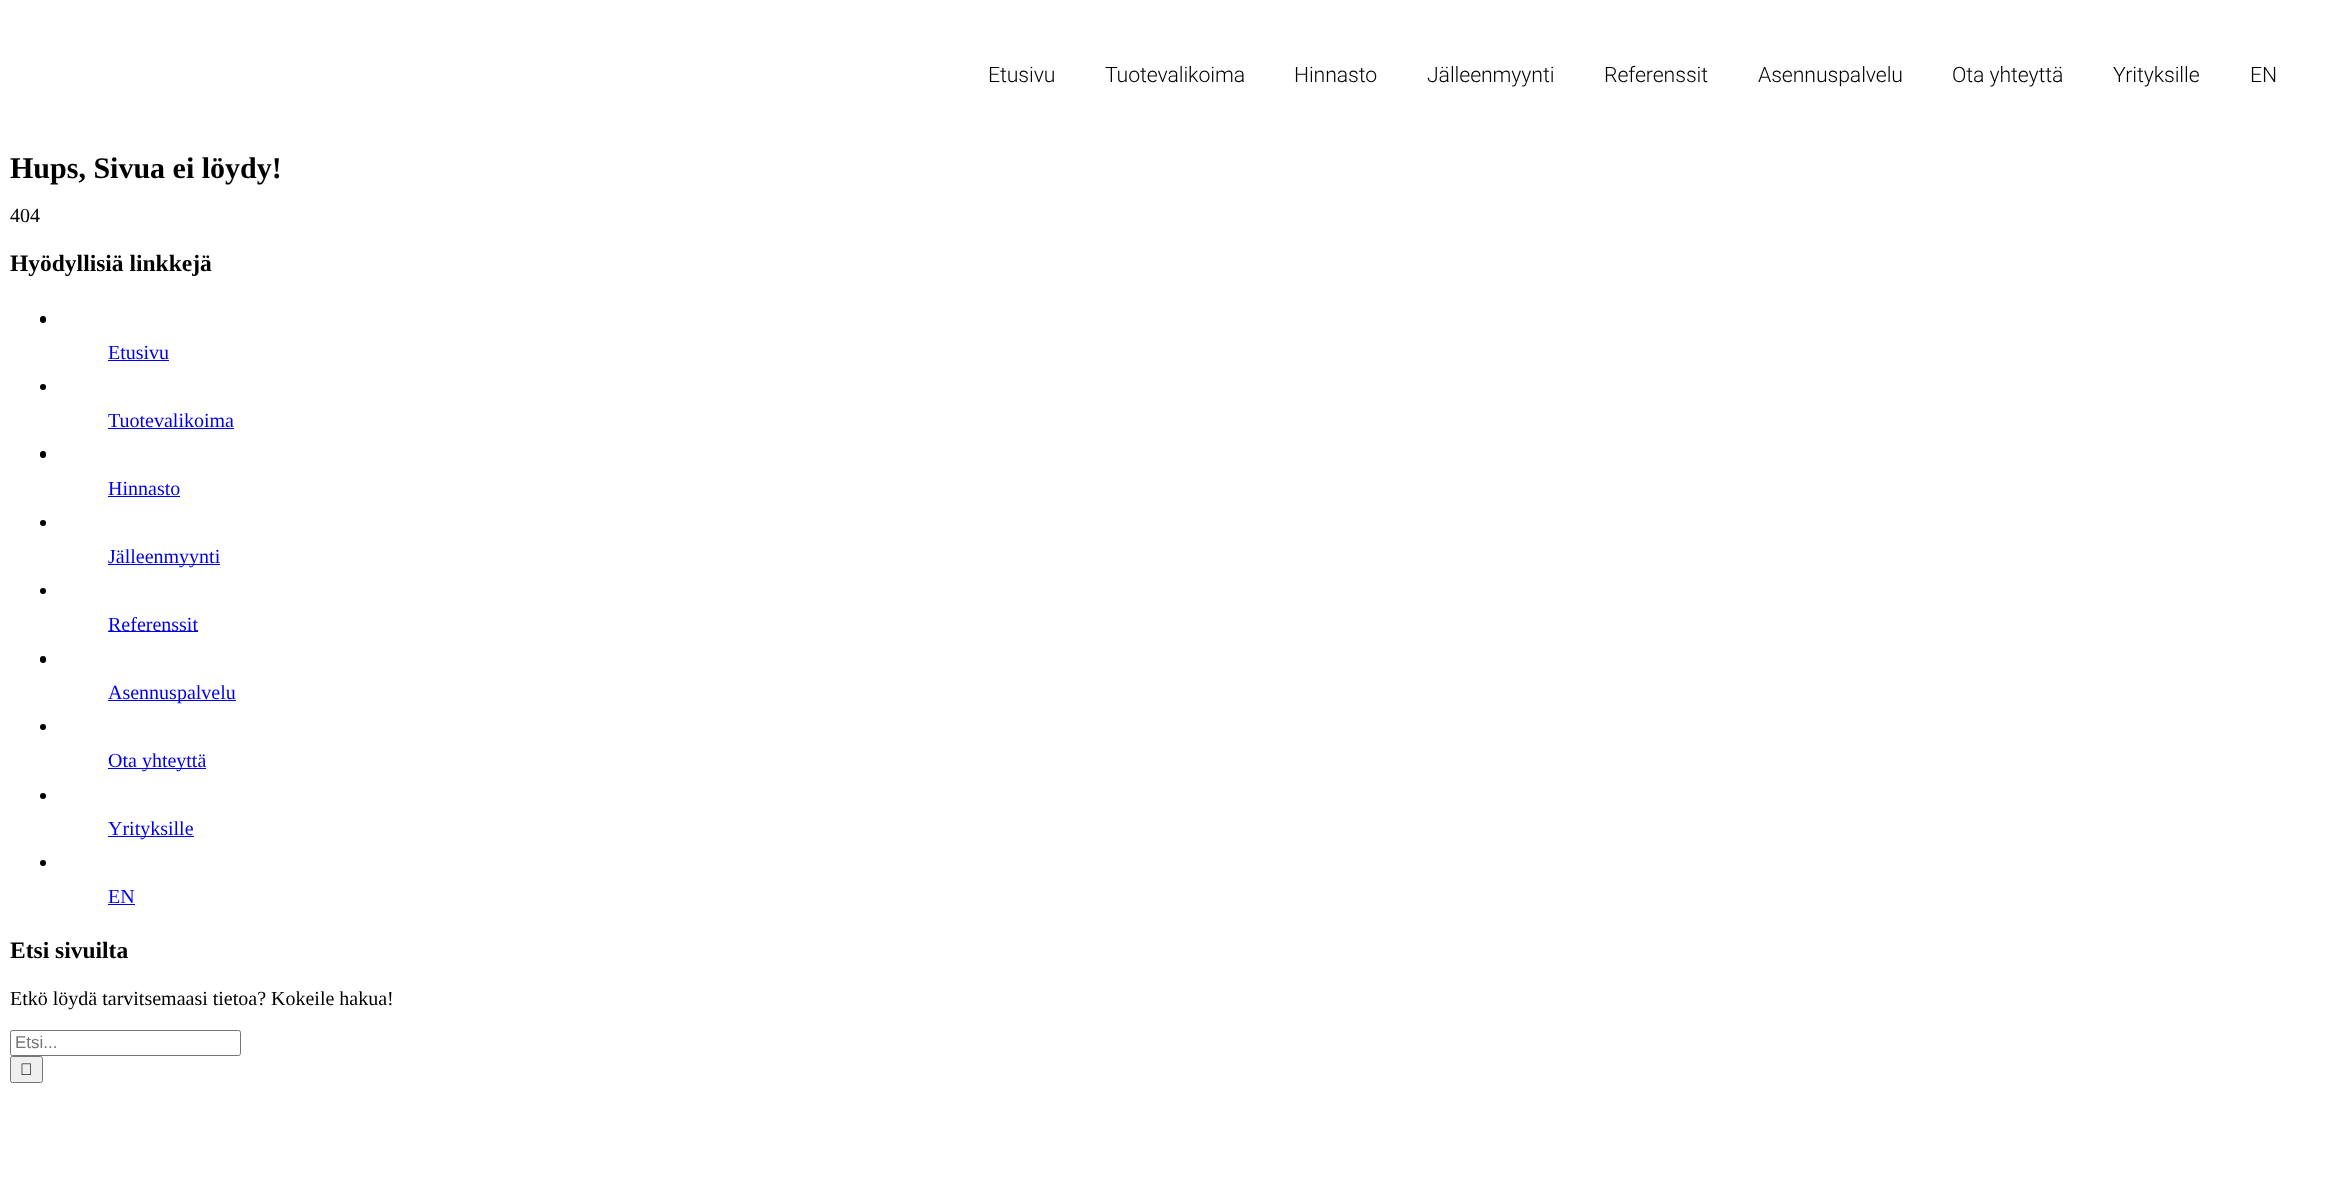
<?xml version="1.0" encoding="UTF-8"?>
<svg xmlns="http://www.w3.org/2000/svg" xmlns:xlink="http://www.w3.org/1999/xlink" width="2347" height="1182">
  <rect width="100%" height="100%" fill="#ffffff" />
  <rect x="40" y="316" width="6" height="7" rx="3" fill="#000000" />
  <rect x="108" y="360" width="61" height="1" fill="#0000ee" />
  <circle cx="43" cy="387" r="3" fill="#000000" />
  <rect x="108" y="428" width="126" height="1" fill="#0000ee" />
  <rect x="40" y="451" width="6" height="7" rx="3" fill="#000000" />
  <rect x="108" y="496" width="72" height="1" fill="#0000ee" />
  <circle cx="43" cy="523" r="3" fill="#000000" />
  <rect x="108" y="564" width="112" height="1" fill="#0000ee" />
  <circle cx="43" cy="591" r="3" fill="#000000" />
  <rect x="108" y="631" width="90" height="1" fill="#0000ee" />
  <rect x="40" y="656" width="6" height="7" rx="3" fill="#000000" />
  <rect x="108" y="700" width="128" height="1" fill="#0000ee" />
  <circle cx="43" cy="727" r="3" fill="#000000" />
  <rect x="108" y="768" width="98" height="1" fill="#0000ee" />
  <circle cx="43" cy="796" r="3" fill="#000000" />
  <rect x="108" y="836" width="86" height="1" fill="#0000ee" />
  <circle cx="43" cy="863" r="3" fill="#000000" />
  <rect x="108" y="904" width="27" height="1" fill="#0000ee" />
  <rect x="10.5" y="1030.5" width="230" height="25" rx="2" fill="none" stroke="#767676" />
  <rect x="10.5" y="1056.5" width="32" height="26" rx="2" fill="#efefef" stroke="#767676" />
  <image x="21" y="1063" width="10" height="12" xlink:href="image1.png" />
  <text x="988" y="82" style="font-family: Roboto; font-size: 21.25px; font-weight: 300; letter-spacing: -0.1px; fill: #000000">Etusivu</text>
  <text x="1105" y="82" style="font-family: Roboto; font-size: 21.25px; font-weight: 300; letter-spacing: -0.1px; fill: #000000">Tuotevalikoima</text>
  <text x="1294" y="82" style="font-family: Roboto; font-size: 21.25px; font-weight: 300; letter-spacing: -0.1px; fill: #000000">Hinnasto</text>
  <text x="1427" y="82" style="font-family: Roboto; font-size: 21.25px; font-weight: 300; letter-spacing: -0.1px; fill: #000000">Jälleenmyynti</text>
  <text x="1604" y="82" style="font-family: Roboto; font-size: 21.25px; font-weight: 300; letter-spacing: -0.1px; fill: #000000">Referenssit</text>
  <text x="1758" y="82" style="font-family: Roboto; font-size: 21.25px; font-weight: 300; letter-spacing: -0.1px; fill: #000000">Asennuspalvelu</text>
  <text x="1952" y="82" style="font-family: Roboto; font-size: 21.25px; font-weight: 300; letter-spacing: -0.1px; fill: #000000">Ota yhteyttä</text>
  <text x="2113" y="82" style="font-family: Roboto; font-size: 21.25px; font-weight: 300; letter-spacing: -0.1px; fill: #000000">Yrityksille</text>
  <text x="2250" y="82" style="font-family: Roboto; font-size: 21.25px; font-weight: 300; letter-spacing: -0.1px; fill: #000000">EN</text>
  <text x="10" y="178" style="font-family: Liberation Serif; font-size: 30px; font-weight: bold; fill: #000000">Hups, Sivua ei löydy!</text>
  <text x="10" y="222" style="font-family: Liberation Serif; font-size: 20px; fill: #000000">404</text>
  <text x="10" y="271" style="font-family: Liberation Serif; font-size: 23.5px; font-weight: bold; fill: #000000">Hyödyllisiä linkkejä</text>
  <text x="108" y="359" style="font-family: Liberation Serif; font-size: 20px; fill: #0000ee">Etusivu</text>
  <text x="108" y="427" style="font-family: Liberation Serif; font-size: 20px; fill: #0000ee">Tuotevalikoima</text>
  <text x="108" y="495" style="font-family: Liberation Serif; font-size: 20px; fill: #0000ee">Hinnasto</text>
  <text x="108" y="563" style="font-family: Liberation Serif; font-size: 20px; fill: #0000ee">Jälleenmyynti</text>
  <text x="108" y="631" style="font-family: Liberation Serif; font-size: 20px; fill: #0000ee">Referenssit</text>
  <text x="108" y="699" style="font-family: Liberation Serif; font-size: 20px; fill: #0000ee">Asennuspalvelu</text>
  <text x="108" y="767" style="font-family: Liberation Serif; font-size: 20px; fill: #0000ee">Ota yhteyttä</text>
  <text x="108" y="835" style="font-family: Liberation Serif; font-size: 20px; fill: #0000ee">Yrityksille</text>
  <text x="108" y="903" style="font-family: Liberation Serif; font-size: 20px; fill: #0000ee">EN</text>
  <text x="10" y="958" style="font-family: Liberation Serif; font-size: 23.5px; font-weight: bold; fill: #000000">Etsi sivuilta</text>
  <text x="10" y="1005" style="font-family: Liberation Serif; font-size: 20px; fill: #000000">Etkö löydä tarvitsemaasi tietoa? Kokeile hakua!</text>
  <text x="15" y="1048" style="font-family: Liberation Sans; font-size: 17px; fill: #757575">Etsi...</text>
</svg>
